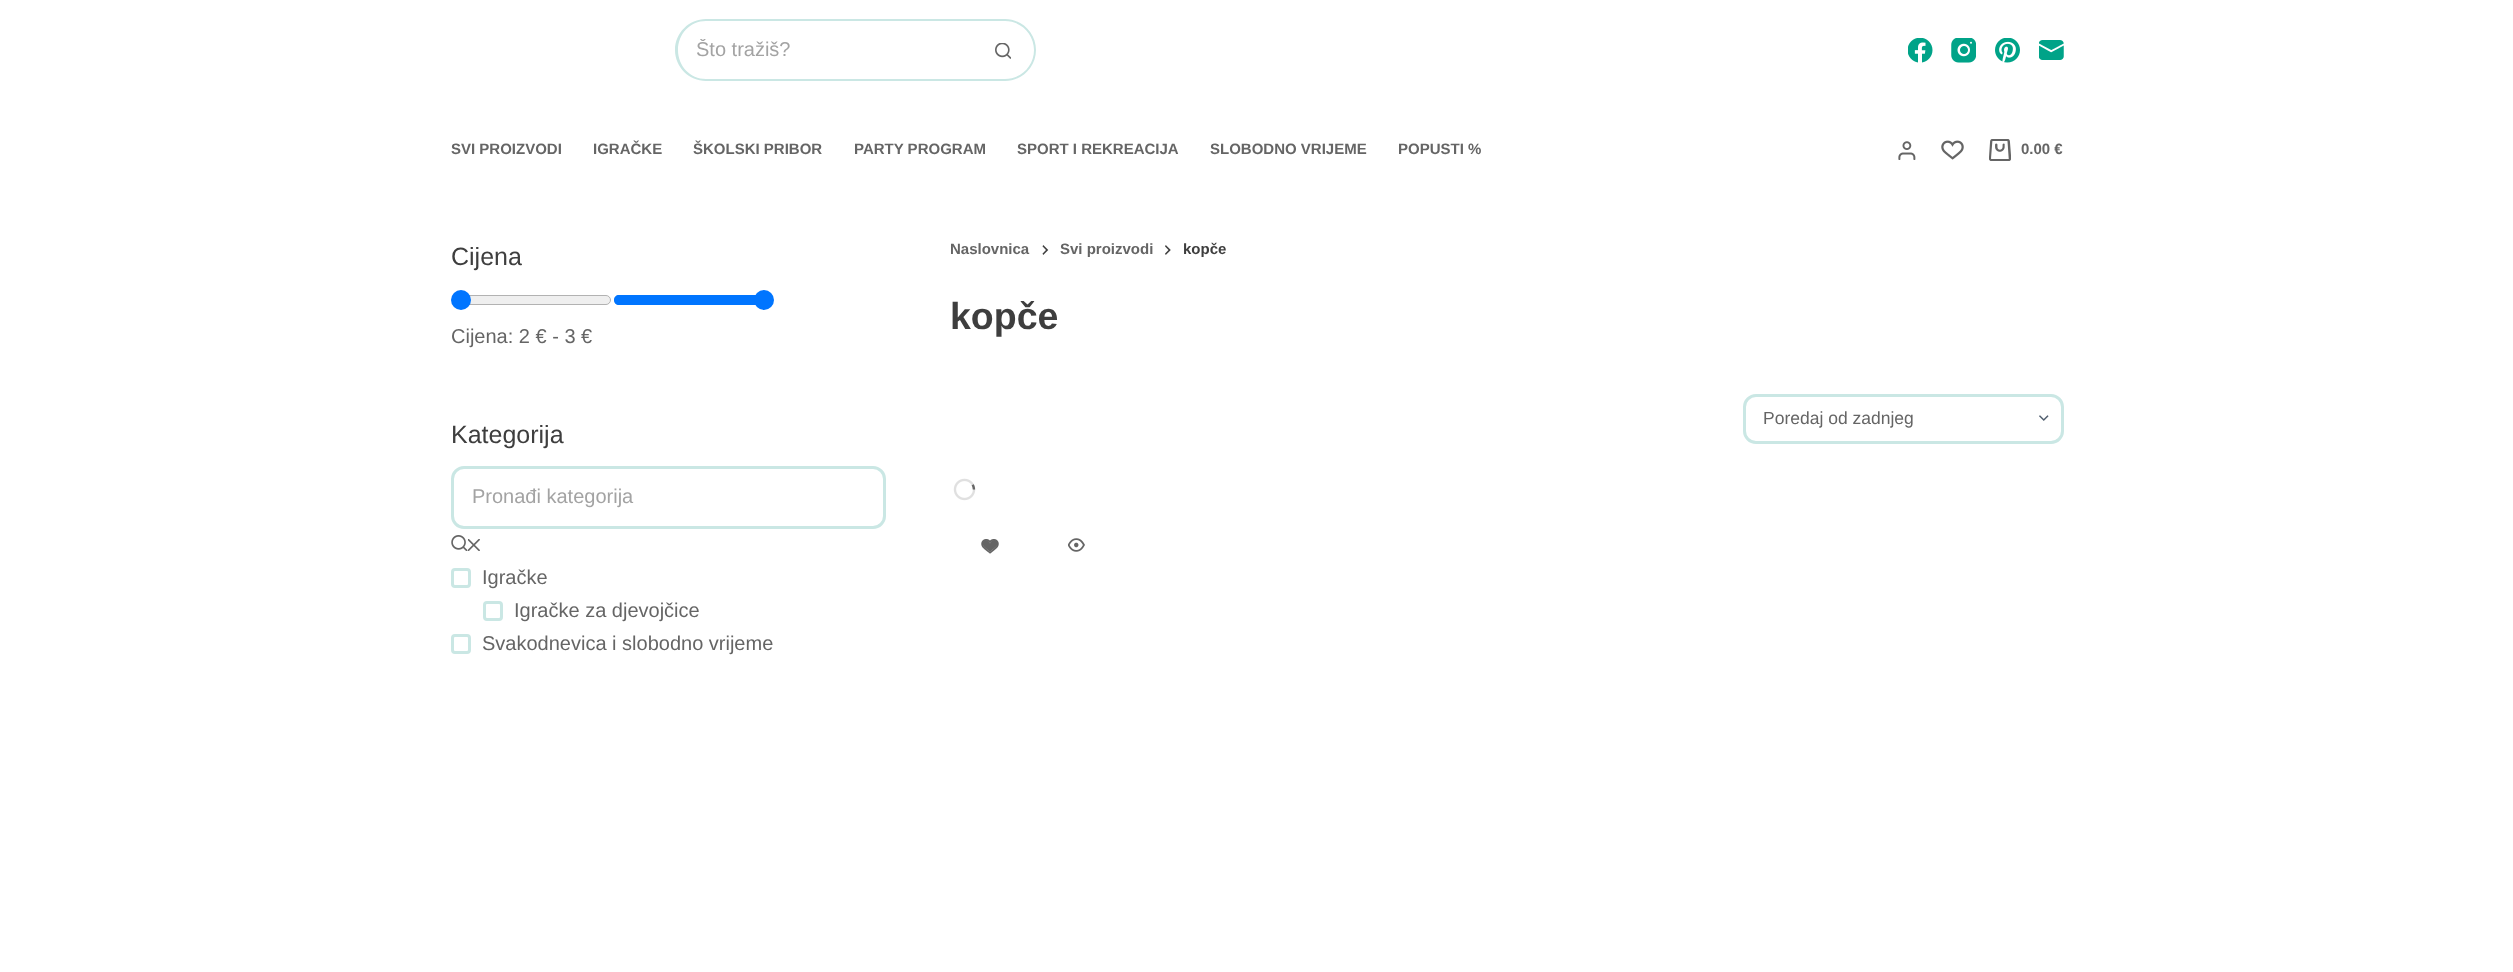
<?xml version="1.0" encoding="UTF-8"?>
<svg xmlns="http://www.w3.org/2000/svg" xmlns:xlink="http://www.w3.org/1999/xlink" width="2513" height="972">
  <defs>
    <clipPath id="clip1"><rect x="696" y="39" width="254" height="22" /></clipPath>
  </defs>
  <rect width="100%" height="100%" fill="#ffffff" />
  <path d="M 706 19 h 268 v 62 h -268 c -17 0 -31 -14 -31 -31 c 0 -17 14 -31 31 -31 z m 0 2 h 268 v 58 h -268 c -16 0 -28 -13 -28 -29 c 0 -16 12 -29 28 -29 z" fill="#cae7e4" fill-rule="evenodd" />
  <path d="M 974 19 h 31 c 17 0 31 14 31 31 c 0 17 -14 31 -31 31 h -31 z m 0 2 h 31 c 16 0 29 13 29 29 c 0 16 -13 29 -29 29 h -31 z" fill="#cae7e4" fill-rule="evenodd" />
  <image x="995" y="43" width="16" height="16" xlink:href="image1.png" />
  <image x="1908" y="38" width="25" height="25" xlink:href="image2.png" />
  <image x="1951" y="38" width="25" height="25" xlink:href="image3.png" />
  <image x="1995" y="38" width="25" height="25" xlink:href="image4.png" />
  <image x="2039" y="40" width="25" height="20" xlink:href="image5.png" />
  <image x="1898" y="141" width="18" height="19" xlink:href="image6.png" />
  <image x="1941" y="140" width="23" height="20" xlink:href="image7.png" />
  <image x="1989" y="139" width="22" height="22" xlink:href="image8.png" />
  <rect x="453.5" y="295.5" width="157" height="9" rx="4.5" fill="#efefef" stroke="#b2b2b2" />
  <circle cx="461" cy="300" r="10" fill="#0075ff" />
  <rect x="614.5" y="295.5" width="158" height="9" rx="4.5" fill="none" stroke="#b2b2b2" />
  <path d="M 619 295 h 145 v 10 h -145 c -3 0 -5 -2 -5 -5 c 0 -3 2 -5 5 -5 z" fill="#0075ff" />
  <circle cx="764" cy="300" r="10" fill="#0075ff" />
  <rect x="452.5" y="467.5" width="432" height="60" rx="11.5" fill="none" stroke="#cae7e4" stroke-width="3" />
  <image x="451" y="535" width="17" height="16" xlink:href="image9.png" />
  <image x="468" y="539" width="12" height="12" xlink:href="image10.png" />
  <rect x="452.5" y="569.5" width="17" height="17" rx="2.5" fill="none" stroke="#cae7e4" stroke-width="3" />
  <rect x="484.5" y="602.5" width="17" height="17" rx="2.5" fill="none" stroke="#cae7e4" stroke-width="3" />
  <rect x="452.5" y="635.5" width="17" height="17" rx="2.5" fill="none" stroke="#cae7e4" stroke-width="3" />
  <image x="1042" y="245" width="7" height="10" xlink:href="image11.png" />
  <image x="1165" y="245" width="6" height="10" xlink:href="image12.png" />
  <image x="2039" y="415" width="10" height="6" xlink:href="image13.png" />
  <rect x="1744.5" y="395.5" width="318" height="47" rx="11.5" fill="none" stroke="#cae7e4" stroke-width="3" />
  <image x="953" y="478" width="23" height="23" xlink:href="image14.png" />
  <image x="981" y="539" width="18" height="15" xlink:href="image15.png" />
  <image x="1068" y="538" width="17" height="14" xlink:href="image16.png" />
  <g clip-path="url(#clip1)">
    <text x="696" y="56" style="font-family: Liberation Sans; font-size: 20px; fill: #a3a3a3">Što tražiš?</text>
  </g>
  <text x="451" y="154" style="font-family: Liberation Sans; font-size: 15px; font-weight: bold; fill: #656565">SVI PROIZVODI</text>
  <text x="593" y="154" style="font-family: Liberation Sans; font-size: 15px; font-weight: bold; fill: #656565">IGRAČKE</text>
  <text x="693" y="154" style="font-family: Liberation Sans; font-size: 15px; font-weight: bold; fill: #656565">ŠKOLSKI PRIBOR</text>
  <text x="854" y="154" style="font-family: Liberation Sans; font-size: 15px; font-weight: bold; fill: #656565">PARTY PROGRAM</text>
  <text x="1017" y="154" style="font-family: Liberation Sans; font-size: 15px; font-weight: bold; fill: #656565">SPORT I REKREACIJA</text>
  <text x="1210" y="154" style="font-family: Liberation Sans; font-size: 15px; font-weight: bold; fill: #656565">SLOBODNO VRIJEME</text>
  <text x="1398" y="154" style="font-family: Liberation Sans; font-size: 15px; font-weight: bold; fill: #656565">POPUSTI %</text>
  <text x="2021" y="154" style="font-family: Liberation Sans; font-size: 15px; font-weight: bold; fill: #656565">0.00 €</text>
  <text x="451" y="265" style="font-family: Liberation Sans; font-size: 25px; fill: #3e3e3e">Cijena</text>
  <text x="451" y="343" style="font-family: Liberation Sans; font-size: 20px; fill: #656565">Cijena: 2 € - 3 €</text>
  <text x="451" y="443" style="font-family: Liberation Sans; font-size: 25px; fill: #3e3e3e">Kategorija</text>
  <text x="472" y="503" style="font-family: Liberation Sans; font-size: 20px; fill: #a3a3a3">Pronađi kategorija</text>
  <text x="482" y="584" style="font-family: Liberation Sans; font-size: 20px; fill: #656565">Igračke</text>
  <text x="514" y="617" style="font-family: Liberation Sans; font-size: 20px; fill: #656565">Igračke za djevojčice</text>
  <text x="482" y="650" style="font-family: Liberation Sans; font-size: 20px; fill: #656565">Svakodnevica i slobodno vrijeme</text>
  <text x="950" y="254" style="font-family: Liberation Sans; font-size: 15px; font-weight: bold; fill: #656565">Naslovnica</text>
  <text x="1060" y="254" style="font-family: Liberation Sans; font-size: 15px; font-weight: bold; fill: #656565">Svi proizvodi</text>
  <text x="1183" y="254" style="font-family: Liberation Sans; font-size: 15px; font-weight: bold; fill: #3e3e3e">kopče</text>
  <text x="950" y="329" style="font-family: Liberation Sans; font-size: 37.5px; font-weight: bold; fill: #3e3e3e">kopče</text>
  <text x="1763" y="424" style="font-family: Liberation Sans; font-size: 17.5px; fill: #656565">Poredaj od zadnjeg</text>
</svg>
